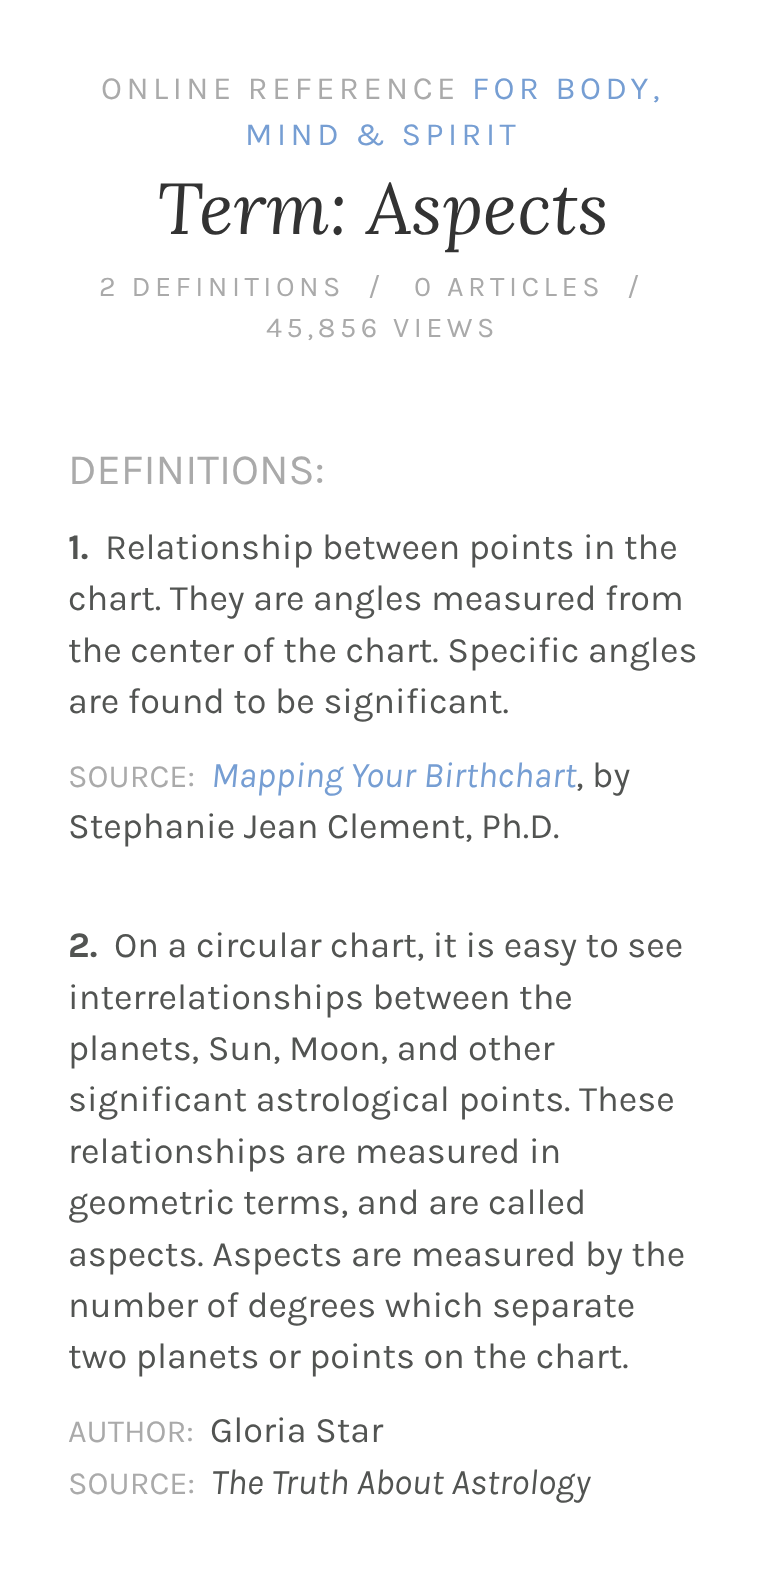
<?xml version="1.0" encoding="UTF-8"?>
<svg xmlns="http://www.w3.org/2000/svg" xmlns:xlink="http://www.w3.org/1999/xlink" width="765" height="1571">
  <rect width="100%" height="100%" fill="#ffffff" />
  <text x="101" y="99" style="font-family: Karla; font-size: 32.4px; letter-spacing: 4.5px; fill: #aaaaaa">ONLINE REFERENCE</text>
  <text x="472" y="99" style="font-family: Karla; font-size: 32.4px; letter-spacing: 4.5px; fill: #769ed3">FOR BODY,</text>
  <text x="245" y="145" style="font-family: Karla; font-size: 32.4px; letter-spacing: 4.5px; fill: #769ed3">MIND &amp; SPIRIT</text>
  <text x="157" y="234" style="font-family: Lora; font-size: 72px; font-style: italic; fill: #333333">Term: Aspects</text>
  <text x="99" y="296" style="font-family: Karla; font-size: 28.75px; letter-spacing: 4.5px; fill: #aaaaaa">2 DEFINITIONS</text>
  <text x="368" y="296" style="font-family: Karla; font-size: 28.75px; letter-spacing: 4.5px; fill: #aaaaaa">/</text>
  <text x="414" y="296" style="font-family: Karla; font-size: 28.75px; letter-spacing: 4.5px; fill: #aaaaaa">0 ARTICLES</text>
  <text x="627" y="296" style="font-family: Karla; font-size: 28.75px; letter-spacing: 4.5px; fill: #aaaaaa">/</text>
  <text x="266" y="337" style="font-family: Karla; font-size: 28.75px; letter-spacing: 4.5px; fill: #aaaaaa">45,856 VIEWS</text>
  <text x="68" y="484" style="font-family: Karla; font-size: 43.25px; fill: #aaaaaa">DEFINITIONS:</text>
  <text x="68" y="559" style="font-family: Karla; font-size: 36px; font-weight: bold; fill: #525452">1.</text>
  <text x="105" y="559" style="font-family: Karla; font-size: 36px; fill: #525452">Relationship between points in the</text>
  <text x="68" y="610" style="font-family: Karla; font-size: 36px; fill: #525452">chart. They are angles measured from</text>
  <text x="68" y="662" style="font-family: Karla; font-size: 36px; fill: #525452">the center of the chart. Specific angles</text>
  <text x="68" y="713" style="font-family: Karla; font-size: 36px; fill: #525452">are found to be significant.</text>
  <text x="68" y="787" style="font-family: Karla; font-size: 32.4px; fill: #aaaaaa">SOURCE:</text>
  <text x="211" y="787" style="font-family: Karla; font-size: 36px; font-style: italic; fill: #769ed3">Mapping Your Birthchart</text>
  <text x="576" y="787" style="font-family: Karla; font-size: 36px; fill: #525452">, by</text>
  <text x="68" y="838" style="font-family: Karla; font-size: 36px; fill: #525452">Stephanie Jean Clement, Ph.D.</text>
  <text x="68" y="957" style="font-family: Karla; font-size: 36px; font-weight: bold; fill: #525452">2.</text>
  <text x="114" y="957" style="font-family: Karla; font-size: 36px; fill: #525452">On a circular chart, it is easy to see</text>
  <text x="68" y="1009" style="font-family: Karla; font-size: 36px; fill: #525452">interrelationships between the</text>
  <text x="68" y="1060" style="font-family: Karla; font-size: 36px; fill: #525452">planets, Sun, Moon, and other</text>
  <text x="68" y="1111" style="font-family: Karla; font-size: 36px; fill: #525452">significant astrological points. These</text>
  <text x="68" y="1163" style="font-family: Karla; font-size: 36px; fill: #525452">relationships are measured in</text>
  <text x="68" y="1214" style="font-family: Karla; font-size: 36px; fill: #525452">geometric terms, and are called</text>
  <text x="68" y="1266" style="font-family: Karla; font-size: 36px; fill: #525452">aspects. Aspects are measured by the</text>
  <text x="68" y="1317" style="font-family: Karla; font-size: 36px; fill: #525452">number of degrees which separate</text>
  <text x="68" y="1368" style="font-family: Karla; font-size: 36px; fill: #525452">two planets or points on the chart.</text>
  <text x="68" y="1442" style="font-family: Karla; font-size: 32.4px; fill: #aaaaaa">AUTHOR:</text>
  <text x="210" y="1442" style="font-family: Karla; font-size: 36px; fill: #525452">Gloria Star</text>
  <text x="68" y="1494" style="font-family: Karla; font-size: 32.4px; fill: #aaaaaa">SOURCE:</text>
  <text x="211" y="1494" style="font-family: Karla; font-size: 36px; font-style: italic; fill: #525452">The Truth About Astrology</text>
</svg>
